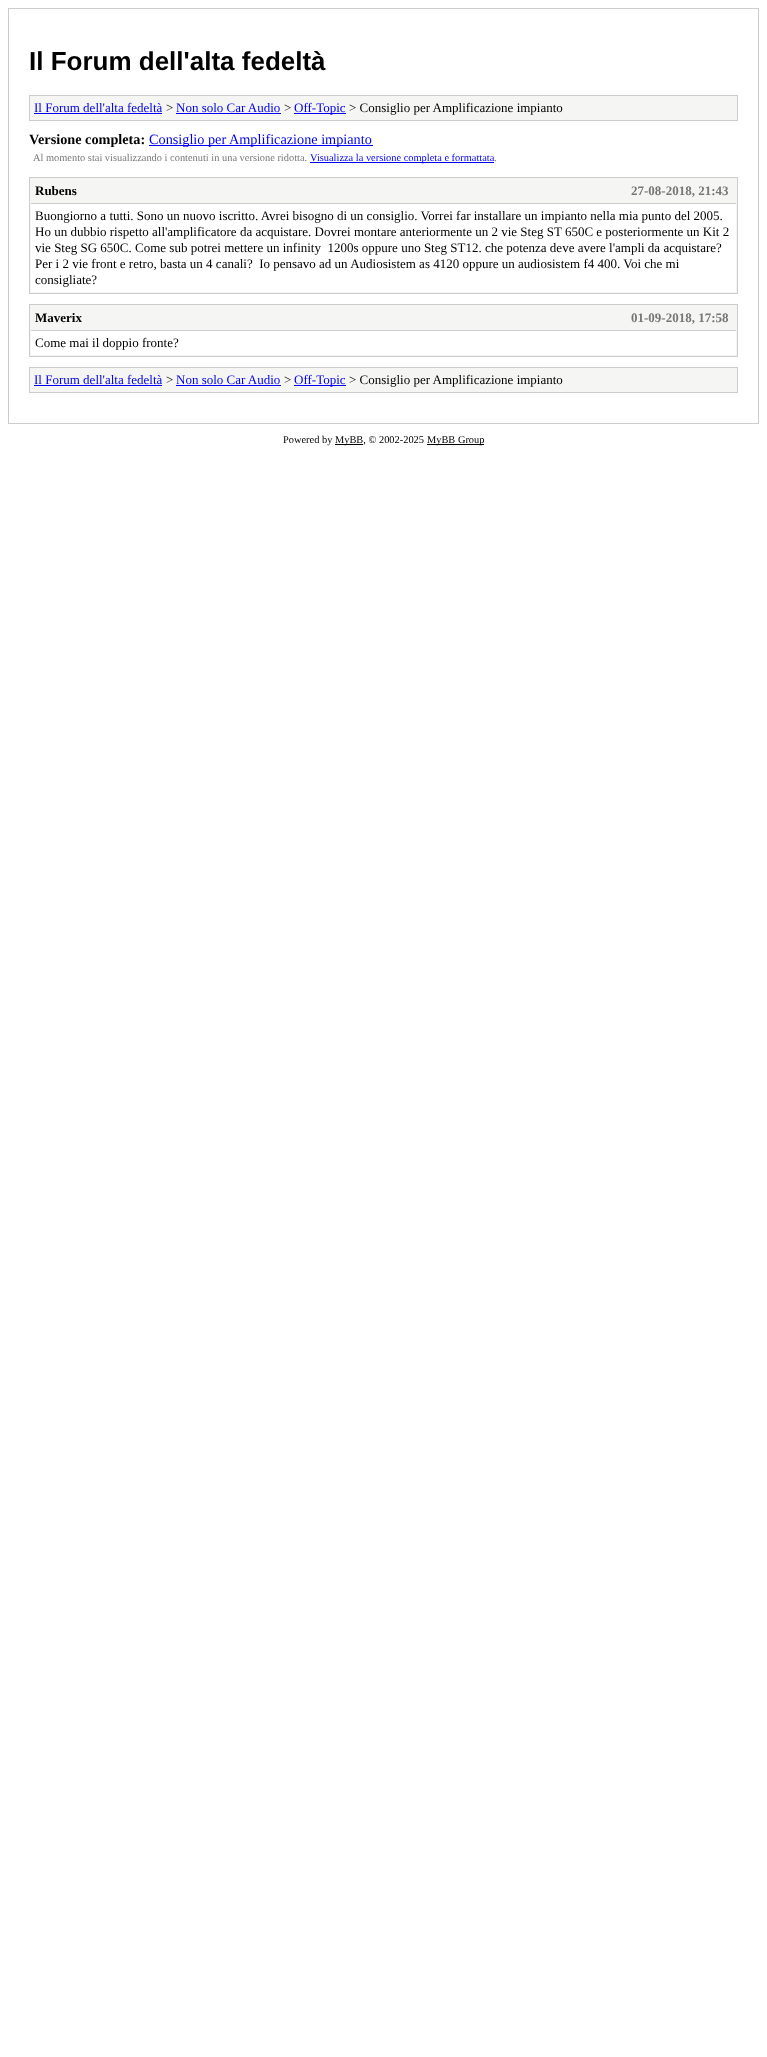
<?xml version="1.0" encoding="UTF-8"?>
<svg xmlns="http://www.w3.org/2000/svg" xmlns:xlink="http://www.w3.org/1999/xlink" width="767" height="2057">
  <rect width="100%" height="100%" fill="#ffffff" />
  <rect x="8.5" y="8.5" width="750" height="415" fill="none" stroke="#cccccc" />
  <rect x="29.5" y="95.5" width="708" height="25" fill="#f5f5f4" stroke="#cccccc" />
  <rect x="34" y="113" width="128" height="1" fill="#0000ee" />
  <rect x="176" y="113" width="105" height="1" fill="#0000ee" />
  <rect x="294" y="113" width="52" height="1" fill="#0000ee" />
  <rect x="149" y="145" width="224" height="1" fill="#0000ee" />
  <rect x="310" y="162" width="184" height="1" fill="#0000ee" />
  <rect x="29.5" y="177.5" width="708" height="116" fill="#f5f5f4" stroke="#cccccc" />
  <rect x="31" y="203" width="705" height="1" fill="#cccccc" />
  <rect x="31" y="204" width="705" height="88" fill="#ffffff" />
  <rect x="29.5" y="304.5" width="708" height="52" fill="#f5f5f4" stroke="#cccccc" />
  <rect x="31" y="330" width="705" height="1" fill="#cccccc" />
  <rect x="31" y="331" width="705" height="24" fill="#ffffff" />
  <rect x="29.5" y="367.5" width="708" height="25" fill="#f5f5f4" stroke="#cccccc" />
  <rect x="34" y="385" width="128" height="1" fill="#0000ee" />
  <rect x="176" y="385" width="105" height="1" fill="#0000ee" />
  <rect x="294" y="385" width="52" height="1" fill="#0000ee" />
  <rect x="335" y="444" width="28" height="1" fill="#000000" />
  <rect x="427" y="444" width="57" height="1" fill="#000000" />
  <text x="29" y="70" style="font-family: Liberation Sans; font-size: 26px; font-weight: bold; fill: #000000">Il Forum dell'alta fedeltà</text>
  <text x="34" y="112" style="font-family: Liberation Serif; font-size: 13px; fill: #0000ee">Il Forum dell'alta fedeltà</text>
  <text x="166" y="112" style="font-family: Liberation Serif; font-size: 13px; fill: #000000">&gt;</text>
  <text x="176" y="112" style="font-family: Liberation Serif; font-size: 13px; fill: #0000ee">Non solo Car Audio</text>
  <text x="284" y="112" style="font-family: Liberation Serif; font-size: 13px; fill: #000000">&gt;</text>
  <text x="294" y="112" style="font-family: Liberation Serif; font-size: 13px; fill: #0000ee">Off-Topic</text>
  <text x="349" y="112" style="font-family: Liberation Serif; font-size: 13px; fill: #000000">&gt; Consiglio per Amplificazione impianto</text>
  <text x="29" y="144" style="font-family: Liberation Serif; font-size: 14.25px; font-weight: bold; fill: #000000">Versione completa:</text>
  <text x="149" y="144" style="font-family: Liberation Serif; font-size: 14.25px; fill: #0000ee">Consiglio per Amplificazione impianto</text>
  <text x="33" y="161" style="font-family: Liberation Serif; font-size: 10.4px; fill: #777777">Al momento stai visualizzando i contenuti in una versione ridotta.</text>
  <text x="310" y="161" style="font-family: Liberation Serif; font-size: 10.4px; fill: #0000ee">Visualizza la versione completa e formattata</text>
  <text x="494" y="161" style="font-family: Liberation Serif; font-size: 10.4px; fill: #777777">.</text>
  <text x="35" y="195" style="font-family: Liberation Serif; font-size: 13px; font-weight: bold; fill: #000000">Rubens</text>
  <text x="631" y="195" style="font-family: Liberation Serif; font-size: 13px; font-weight: bold; fill: #777777">27-08-2018, 21:43</text>
  <text x="35" y="220" style="font-family: Liberation Serif; font-size: 13px; fill: #000000">Buongiorno a tutti. Sono un nuovo iscritto. Avrei bisogno di un consiglio. Vorrei far installare un impianto nella mia punto del 2005.</text>
  <text x="35" y="236" style="font-family: Liberation Serif; font-size: 13px; fill: #000000">Ho un dubbio rispetto all'amplificatore da acquistare. Dovrei montare anteriormente un 2 vie Steg ST 650C e posteriormente un Kit 2</text>
  <text x="35" y="252" style="font-family: Liberation Serif; font-size: 13px; fill: #000000" xml:space="preserve">vie Steg SG 650C. Come sub potrei mettere un infinity  1200s oppure uno Steg ST12. che potenza deve avere l'ampli da acquistare?</text>
  <text x="35" y="268" style="font-family: Liberation Serif; font-size: 13px; fill: #000000" xml:space="preserve">Per i 2 vie front e retro, basta un 4 canali?  Io pensavo ad un Audiosistem as 4120 oppure un audiosistem f4 400. Voi che mi</text>
  <text x="35" y="284" style="font-family: Liberation Serif; font-size: 13px; fill: #000000">consigliate?</text>
  <text x="35" y="322" style="font-family: Liberation Serif; font-size: 13px; font-weight: bold; fill: #000000">Maverix</text>
  <text x="631" y="322" style="font-family: Liberation Serif; font-size: 13px; font-weight: bold; fill: #777777">01-09-2018, 17:58</text>
  <text x="35" y="347" style="font-family: Liberation Serif; font-size: 13px; fill: #000000">Come mai il doppio fronte?</text>
  <text x="34" y="384" style="font-family: Liberation Serif; font-size: 13px; fill: #0000ee">Il Forum dell'alta fedeltà</text>
  <text x="166" y="384" style="font-family: Liberation Serif; font-size: 13px; fill: #000000">&gt;</text>
  <text x="176" y="384" style="font-family: Liberation Serif; font-size: 13px; fill: #0000ee">Non solo Car Audio</text>
  <text x="284" y="384" style="font-family: Liberation Serif; font-size: 13px; fill: #000000">&gt;</text>
  <text x="294" y="384" style="font-family: Liberation Serif; font-size: 13px; fill: #0000ee">Off-Topic</text>
  <text x="349" y="384" style="font-family: Liberation Serif; font-size: 13px; fill: #000000">&gt; Consiglio per Amplificazione impianto</text>
  <text x="283" y="443" style="font-family: Liberation Serif; font-size: 10.4px; fill: #000000">Powered by</text>
  <text x="335" y="443" style="font-family: Liberation Serif; font-size: 10.4px; fill: #000000">MyBB, © 2002-2025</text>
  <text x="427" y="443" style="font-family: Liberation Serif; font-size: 10.4px; fill: #000000">MyBB Group</text>
</svg>
